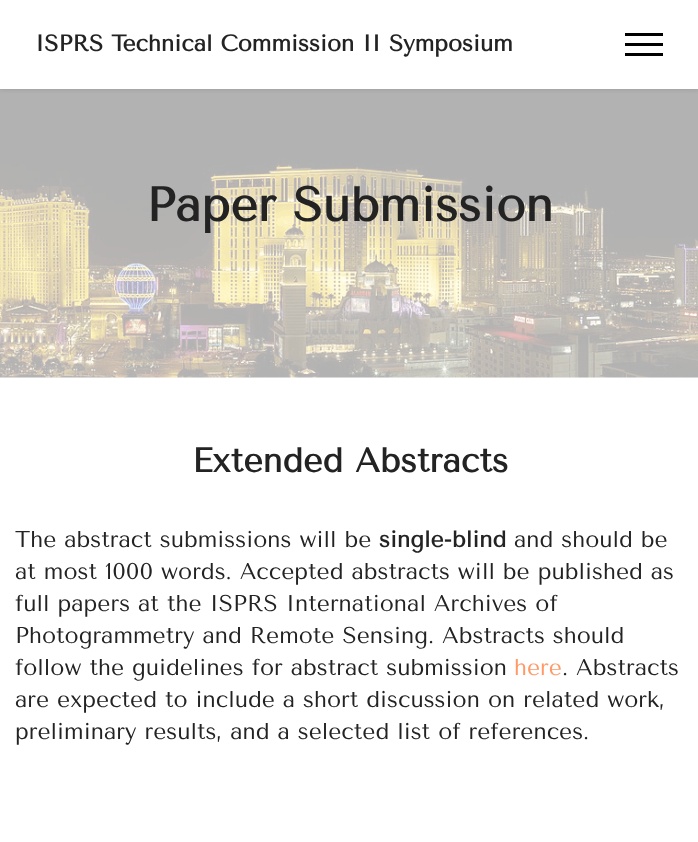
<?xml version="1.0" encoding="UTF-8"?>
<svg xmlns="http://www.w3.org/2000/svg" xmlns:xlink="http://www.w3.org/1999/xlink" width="698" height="842">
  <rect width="100%" height="100%" fill="#ffffff" />
  <image x="0" y="89" width="698" height="289" xlink:href="image1.png" />
  <rect y="1" width="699" height="89" fill="#000000" fill-opacity="0.1" filter="blur(2px)" />
  <rect width="698" height="89" fill="#ffffff" />
  <rect x="625" y="33" width="38" height="3" fill="#000000" />
  <rect x="625" y="43" width="38" height="3" fill="#000000" />
  <rect x="625" y="53" width="38" height="3" fill="#000000" />
  <text x="35" y="51" style="font-family: Tenor Sans; font-size: 22.8px; font-weight: bold; fill: #232323">ISPRS Technical Commission II Symposium</text>
  <text x="146" y="221" style="font-family: Tenor Sans; font-size: 47.9px; font-weight: bold; fill: #232323">Paper Submission</text>
  <text x="192" y="472" style="font-family: Tenor Sans; font-size: 34px; font-weight: bold; fill: #232323">Extended Abstracts</text>
  <text x="15" y="547" style="font-family: Tenor Sans; font-size: 22.8px; fill: #232323">The abstract submissions will be</text>
  <text x="379" y="547" style="font-family: Tenor Sans; font-size: 22.8px; font-weight: bold; fill: #232323">single-blind</text>
  <text x="514" y="547" style="font-family: Tenor Sans; font-size: 22.8px; fill: #232323">and should be</text>
  <text x="15" y="579" style="font-family: Tenor Sans; font-size: 22.8px; fill: #232323">at most 1000 words. Accepted abstracts will be published as</text>
  <text x="15" y="611" style="font-family: Tenor Sans; font-size: 22.8px; fill: #232323">full papers at the ISPRS International Archives of</text>
  <text x="15" y="643" style="font-family: Tenor Sans; font-size: 22.8px; fill: #232323">Photogrammetry and Remote Sensing. Abstracts should</text>
  <text x="15" y="675" style="font-family: Tenor Sans; font-size: 22.8px; fill: #232323">follow the guidelines for abstract submission</text>
  <text x="514" y="675" style="font-family: Tenor Sans; font-size: 22.8px; fill: #ff9966">here</text>
  <text x="562" y="675" style="font-family: Tenor Sans; font-size: 22.8px; fill: #232323">. Abstracts</text>
  <text x="15" y="707" style="font-family: Tenor Sans; font-size: 22.8px; fill: #232323">are expected to include a short discussion on related work,</text>
  <text x="15" y="739" style="font-family: Tenor Sans; font-size: 22.8px; fill: #232323">preliminary results, and a selected list of references.</text>
</svg>
